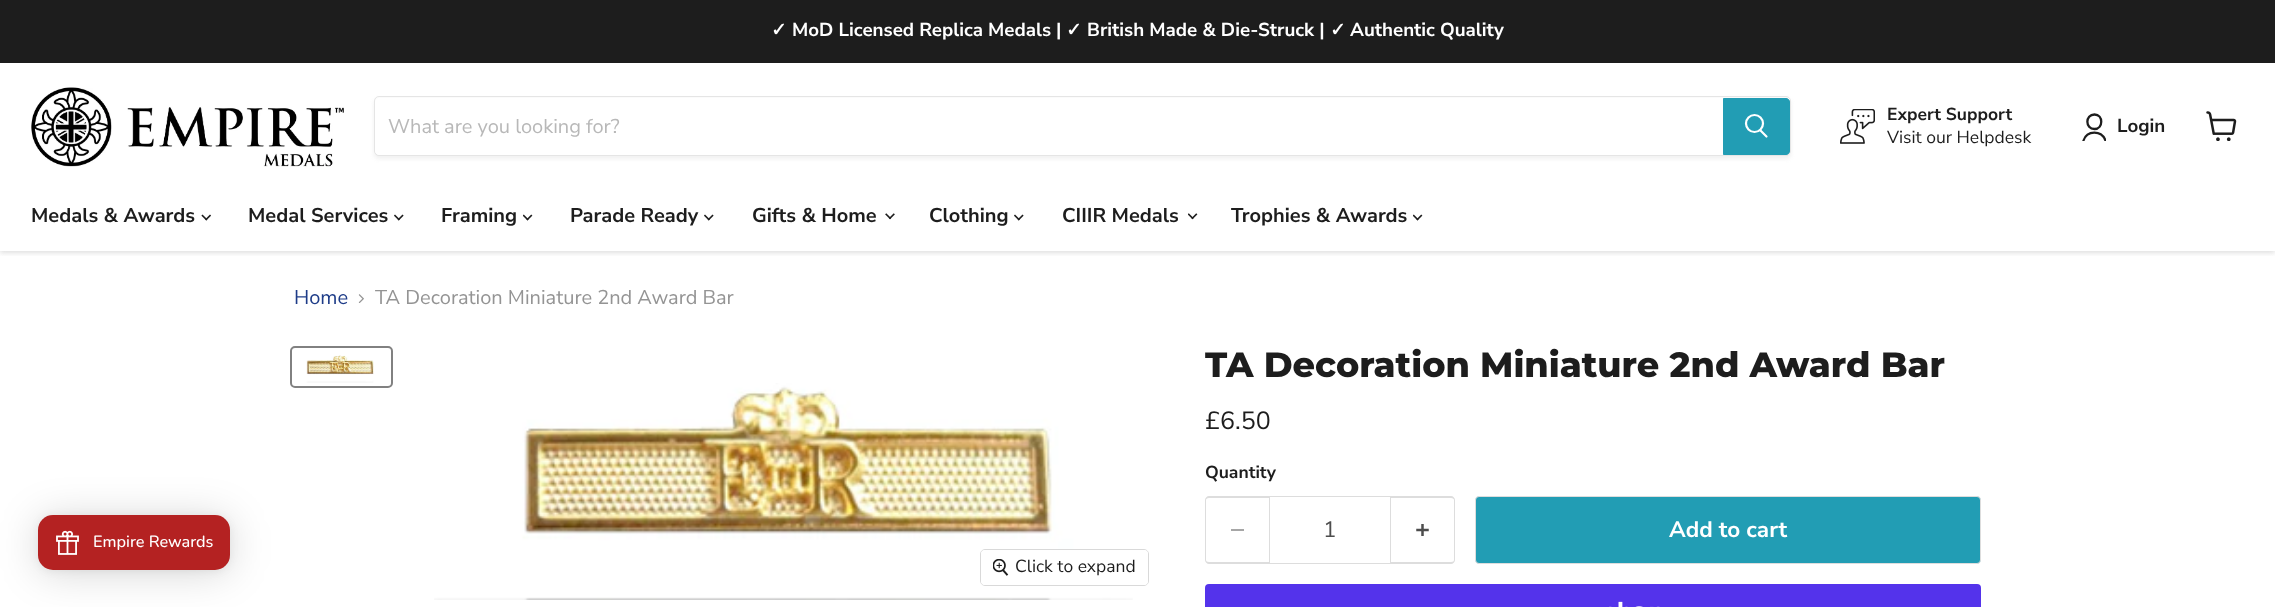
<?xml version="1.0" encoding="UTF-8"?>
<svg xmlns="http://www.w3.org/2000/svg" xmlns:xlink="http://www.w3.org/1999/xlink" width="2275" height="607">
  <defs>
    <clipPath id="clip1"><rect x="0" y="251" width="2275" height="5" /></clipPath>
    <clipPath id="clip2"><rect x="2081" y="113" width="25" height="28" /></clipPath>
  </defs>
  <rect width="100%" height="100%" fill="#ffffff" />
  <g clip-path="url(#clip1)">
    <rect y="64" width="2275" height="189" fill="#808080" fill-opacity="0.25" filter="blur(2.5px)" />
  </g>
  <rect width="2275" height="63" fill="#1d1d1d" />
  <image x="31" y="87" width="313" height="80" xlink:href="image1.png" />
  <rect x="374" y="99" width="1417" height="60" rx="5" fill="#808080" fill-opacity="0.11" filter="blur(2px)" />
  <rect x="374.5" y="96.5" width="1416" height="59" rx="4.5" fill="none" stroke="#e5e5e5" />
  <path d="M 379 98 h 1344 v 57 h -1344 c -2 0 -4 -2 -4 -4 v -49 c 0 -2 2 -4 4 -4 z" fill="#ffffff" />
  <path d="M 1723.5 98.5 h 62.5 c 2 0 3.5 1.5 3.5 3.5 v 49 c 0 2 -1.5 3.5 -3.5 3.5 h -62.5 z" fill="#229db4" stroke="#229db4" />
  <path d="M 1766.5 136.5 l -6 -6" fill="none" stroke="#ffffff" stroke-width="2.2" stroke-linecap="round" />
  <circle cx="1754.5" cy="123.5" r="8.5" fill="none" stroke="#ffffff" stroke-width="2.2" />
  <image x="1840" y="109" width="35" height="35" xlink:href="image2.png" />
  <path d="M 2094.5 129 c 9 0 9 -14.5 0 -14.5 c -9.5 0 -9.5 14.5 0 14.5 z" fill="none" stroke="#1d1d1d" stroke-width="2.3" stroke-linecap="round" stroke-linejoin="round" />
  <g clip-path="url(#clip2)">
    <path d="M 2105.5 140.5 c -4 -10.5 -18.5 -10.5 -22 0" fill="none" stroke="#1d1d1d" stroke-width="2.3" stroke-linecap="round" stroke-linejoin="round" />
  </g>
  <image x="2206" y="111" width="31" height="30" xlink:href="image3.png" />
  <image x="201" y="214" width="10" height="7" xlink:href="image4.png" />
  <image x="394" y="214" width="10" height="7" xlink:href="image5.png" />
  <image x="523" y="214" width="10" height="7" xlink:href="image6.png" />
  <image x="704" y="214" width="10" height="7" xlink:href="image5.png" />
  <image x="885" y="213" width="10" height="7" xlink:href="image7.png" />
  <image x="1014" y="214" width="10" height="7" xlink:href="image5.png" />
  <image x="1188" y="213" width="10" height="7" xlink:href="image8.png" />
  <image x="1413" y="214" width="10" height="7" xlink:href="image6.png" />
  <rect x="38" y="518" width="192" height="55" rx="15" fill="#000000" fill-opacity="0.16" filter="blur(20px)" />
  <rect x="38" y="516" width="192" height="55" rx="15" fill="#000000" fill-opacity="0.06" filter="blur(4px)" />
  <rect x="38" y="515" width="192" height="55" rx="15" fill="#b42222" />
  <image x="56" y="530" width="23" height="25" xlink:href="image9.png" />
  <image x="358" y="294" width="6" height="9" xlink:href="image10.png" />
  <path d="M 1209 496 h 60 v 68 h -60 c -2 0 -4 -2 -4 -4 v -60 c 0 -2 2 -4 4 -4 z m 0 2 h 60 v 64 h -60 c -2 0 -3 -1 -3 -2 v -60 c 0 -1 1 -2 3 -2 z" fill="#dddddd" fill-rule="evenodd" />
  <rect x="1231" y="529" width="13" height="2" fill="#a6a6a6" />
  <rect x="1269.5" y="496.5" width="121" height="67" fill="none" stroke="#dddddd" />
  <path d="M 1391 496 h 60 c 2 0 4 2 4 4 v 60 c 0 2 -2 4 -4 4 h -60 z m 0 2 h 60 c 2 0 3 1 3 2 v 60 c 0 1 -1 2 -3 2 h -60 z" fill="#dddddd" fill-rule="evenodd" />
  <image x="1416" y="524" width="13" height="12" xlink:href="image11.png" />
  <rect x="1475.5" y="496.5" width="505" height="67" rx="3.5" fill="#229db4" stroke="#dddddd" />
  <rect x="1205" y="584" width="776" height="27" rx="4" fill="#5433eb" />
  <image x="1609" y="601" width="51" height="6" xlink:href="image12.png" />
  <rect x="291" y="347" width="101" height="40" rx="4" fill="none" stroke="#818181" stroke-width="2" />
  <image x="306" y="355" width="68" height="28" xlink:href="image13.png" />
  <image x="434" y="383" width="699" height="217" xlink:href="image14.png" />
  <rect x="980.5" y="549.5" width="168" height="36" rx="4.5" fill="none" stroke="#d9d9d9" />
  <rect x="981" y="550" width="167" height="35" rx="4" fill="#ffffff" fill-opacity="0.9" />
  <image x="993" y="559" width="16" height="17" xlink:href="image15.png" />
  <text x="771" y="36" style="font-family: DejaVu Sans; font-size: 18.75px; font-weight: bold; fill: #ffffff">✓</text>
  <text x="792" y="36" style="font-family: Nunito Sans; font-size: 18.75px; font-weight: bold; fill: #ffffff">MoD Licensed Replica Medals |</text>
  <text x="1066" y="36" style="font-family: DejaVu Sans; font-size: 18.75px; font-weight: bold; fill: #ffffff">✓</text>
  <text x="1087" y="36" style="font-family: Nunito Sans; font-size: 18.75px; font-weight: bold; fill: #ffffff">British Made &amp; Die-Struck |</text>
  <text x="1330" y="36" style="font-family: DejaVu Sans; font-size: 18.75px; font-weight: bold; fill: #ffffff">✓</text>
  <text x="1350" y="36" style="font-family: Nunito Sans; font-size: 18.75px; font-weight: bold; fill: #ffffff">Authentic Quality</text>
  <text x="388" y="133" style="font-family: Nunito Sans; font-size: 20px; fill: #b8b8b8">What are you looking for?</text>
  <text x="1887" y="120" style="font-family: Nunito Sans; font-size: 17.5px; font-weight: bold; fill: #1d1d1d">Expert Support</text>
  <text x="1887" y="143" style="font-family: Nunito Sans; font-size: 17.5px; fill: #1d1d1d">Visit our Helpdesk</text>
  <text x="2117" y="132" style="font-family: Nunito Sans; font-size: 18.75px; font-weight: bold; fill: #1d1d1d">Login</text>
  <text x="31" y="222" style="font-family: Nunito Sans; font-size: 20px; font-weight: bold; fill: #1d1d1d">Medals &amp; Awards</text>
  <text x="248" y="222" style="font-family: Nunito Sans; font-size: 20px; font-weight: bold; fill: #1d1d1d">Medal Services</text>
  <text x="441" y="222" style="font-family: Nunito Sans; font-size: 20px; font-weight: bold; fill: #1d1d1d">Framing</text>
  <text x="570" y="222" style="font-family: Nunito Sans; font-size: 20px; font-weight: bold; fill: #1d1d1d">Parade Ready</text>
  <text x="752" y="222" style="font-family: Nunito Sans; font-size: 20px; font-weight: bold; fill: #1d1d1d">Gifts &amp; Home</text>
  <text x="929" y="222" style="font-family: Nunito Sans; font-size: 20px; font-weight: bold; fill: #1d1d1d">Clothing</text>
  <text x="1062" y="222" style="font-family: Nunito Sans; font-size: 20px; font-weight: bold; fill: #1d1d1d">CIIIR Medals</text>
  <text x="1231" y="222" style="font-family: Nunito Sans; font-size: 20px; font-weight: bold; fill: #1d1d1d">Trophies &amp; Awards</text>
  <text x="93" y="547" style="font-family: Nunito; font-size: 16.25px; font-weight: 500; fill: #ffffff">Empire Rewards</text>
  <text x="294" y="304" style="font-family: Nunito Sans; font-size: 20px; fill: #1e3c88">Home</text>
  <text x="375" y="304" style="font-family: Nunito Sans; font-size: 20px; fill: #949494">TA Decoration Miniature 2nd Award Bar</text>
  <text x="1205" y="377" style="font-family: Montserrat; font-size: 35px; font-weight: 800; fill: #1d1d1d">TA Decoration Miniature 2nd Award Bar</text>
  <text x="1205" y="429" style="font-family: Nunito Sans; font-size: 25px; fill: #1d1d1d">£6.50</text>
  <text x="1205" y="478" style="font-family: Nunito Sans; font-size: 17.5px; font-weight: bold; fill: #1d1d1d">Quantity</text>
  <text x="1323" y="537" style="font-family: Nunito Sans; font-size: 22.5px; fill: #4d4d4d">1</text>
  <text x="1669" y="537" style="font-family: Nunito Sans; font-size: 22.5px; font-weight: bold; fill: #ffffff">Add to cart</text>
  <text x="1015" y="572" style="font-family: Nunito Sans; font-size: 17.5px; fill: #1d1d1d">Click to expand</text>
</svg>
